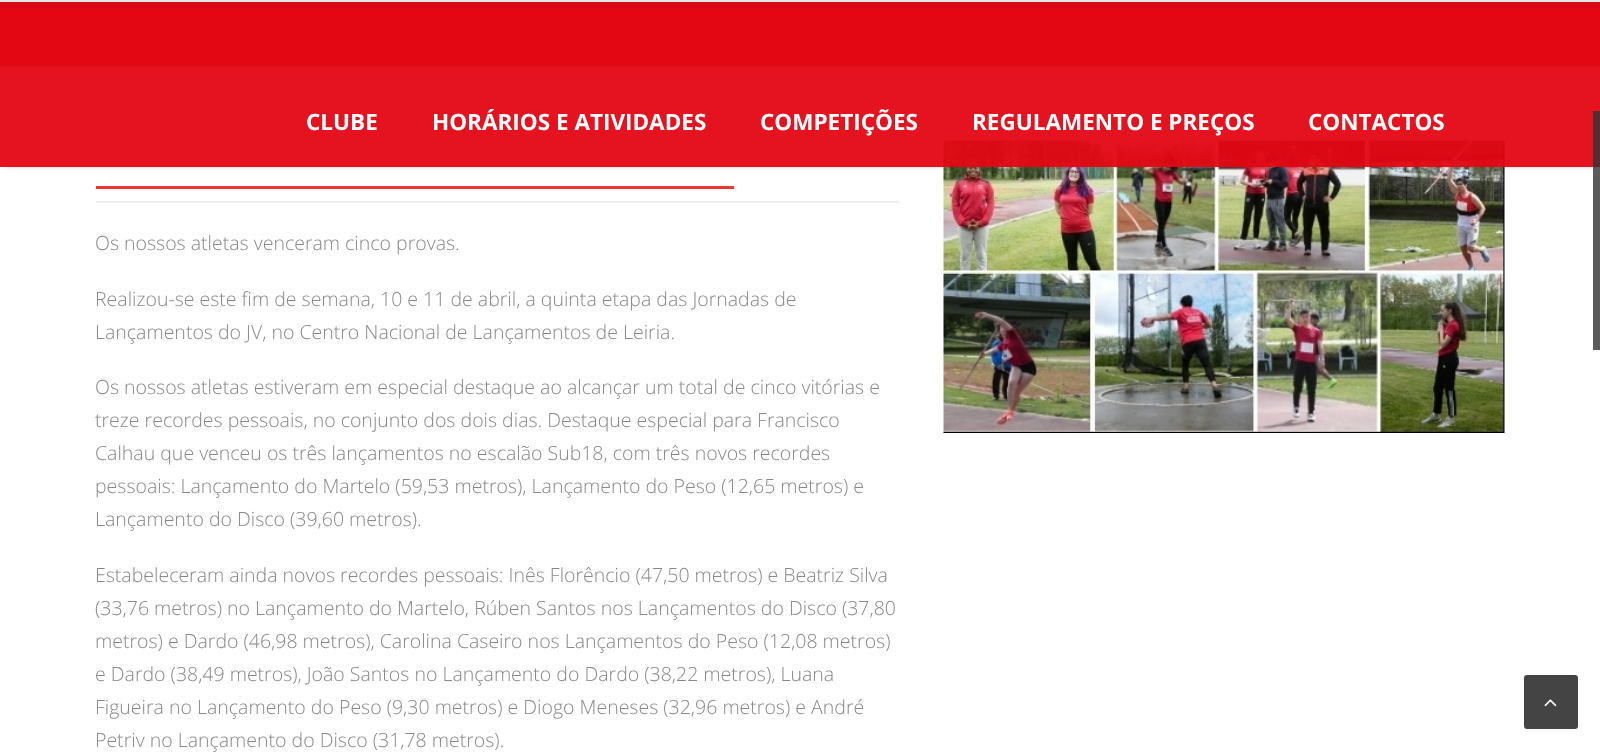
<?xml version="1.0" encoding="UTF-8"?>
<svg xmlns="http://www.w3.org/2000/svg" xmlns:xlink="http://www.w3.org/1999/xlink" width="1600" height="756">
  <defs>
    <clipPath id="clip1"><path d="M 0 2 h 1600 v 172 h -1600 z m 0 -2 h 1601 v 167 h -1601 z" clip-rule="evenodd" /></clipPath>
  </defs>
  <rect width="100%" height="100%" fill="#ffffff" />
  <rect y="2" width="1600" height="7" fill="#333333" />
  <rect y="9" width="1600" height="57" fill="#e20613" />
  <image x="943" y="140" width="562" height="293" xlink:href="image1.png" />
  <g clip-path="url(#clip1)">
    <rect x="5" y="9" width="1591" height="158" fill="#000000" fill-opacity="0.19" filter="blur(2px)" />
  </g>
  <rect width="1600" height="2" fill="#e8e8e8" />
  <rect y="2" width="1600" height="165" fill="#e30613" fill-opacity="0.95" />
  <rect x="96" y="201" width="803" height="2" fill="#eeeeee" />
  <rect x="96" y="186" width="638" height="3" fill="#ee3733" />
  <rect x="1593" y="111" width="7" height="239" fill="#333333" fill-opacity="0.8" />
  <rect x="1524" y="675" width="54" height="54" rx="3" fill="#444444" />
  <image x="1544" y="699" width="13" height="8" xlink:href="image2.png" />
  <text x="306" y="130" style="font-family: Open Sans; font-size: 22.5px; font-weight: bold; fill: #ffffff">CLUBE</text>
  <text x="432" y="130" style="font-family: Open Sans; font-size: 22.5px; font-weight: bold; fill: #ffffff">HORÁRIOS E ATIVIDADES</text>
  <text x="760" y="130" style="font-family: Open Sans; font-size: 22.5px; font-weight: bold; fill: #ffffff">COMPETIÇÕES</text>
  <text x="972" y="130" style="font-family: Open Sans; font-size: 22.5px; font-weight: bold; fill: #ffffff">REGULAMENTO E PREÇOS</text>
  <text x="1308" y="130" style="font-family: Open Sans; font-size: 22.5px; font-weight: bold; fill: #ffffff">CONTACTOS</text>
  <text x="95" y="250" style="font-family: Open Sans; font-size: 19.5px; font-weight: 300; fill: #888888">Os nossos atletas venceram cinco provas.</text>
  <text x="95" y="306" style="font-family: Open Sans; font-size: 19.5px; font-weight: 300; fill: #888888">Realizou-se este fim de semana, 10 e 11 de abril, a quinta etapa das Jornadas de</text>
  <text x="95" y="339" style="font-family: Open Sans; font-size: 19.5px; font-weight: 300; fill: #888888">Lançamentos do JV, no Centro Nacional de Lançamentos de Leiria.</text>
  <text x="95" y="394" style="font-family: Open Sans; font-size: 19.5px; font-weight: 300; fill: #888888">Os nossos atletas estiveram em especial destaque ao alcançar um total de cinco vitórias e</text>
  <text x="95" y="427" style="font-family: Open Sans; font-size: 19.5px; font-weight: 300; fill: #888888">treze recordes pessoais, no conjunto dos dois dias. Destaque especial para Francisco</text>
  <text x="95" y="460" style="font-family: Open Sans; font-size: 19.5px; font-weight: 300; fill: #888888">Calhau que venceu os três lançamentos no escalão Sub18, com três novos recordes</text>
  <text x="95" y="493" style="font-family: Open Sans; font-size: 19.5px; font-weight: 300; fill: #888888">pessoais: Lançamento do Martelo (59,53 metros), Lançamento do Peso (12,65 metros) e</text>
  <text x="95" y="526" style="font-family: Open Sans; font-size: 19.5px; font-weight: 300; fill: #888888">Lançamento do Disco (39,60 metros).</text>
  <text x="95" y="582" style="font-family: Open Sans; font-size: 19.5px; font-weight: 300; fill: #888888">Estabeleceram ainda novos recordes pessoais: Inês Florêncio (47,50 metros) e Beatriz Silva</text>
  <text x="95" y="615" style="font-family: Open Sans; font-size: 19.5px; font-weight: 300; fill: #888888">(33,76 metros) no Lançamento do Martelo, Rúben Santos nos Lançamentos do Disco (37,80</text>
  <text x="95" y="648" style="font-family: Open Sans; font-size: 19.5px; font-weight: 300; fill: #888888">metros) e Dardo (46,98 metros), Carolina Caseiro nos Lançamentos do Peso (12,08 metros)</text>
  <text x="95" y="681" style="font-family: Open Sans; font-size: 19.5px; font-weight: 300; fill: #888888">e Dardo (38,49 metros), João Santos no Lançamento do Dardo (38,22 metros), Luana</text>
  <text x="95" y="714" style="font-family: Open Sans; font-size: 19.5px; font-weight: 300; fill: #888888">Figueira no Lançamento do Peso (9,30 metros) e Diogo Meneses (32,96 metros) e André</text>
  <text x="95" y="747" style="font-family: Open Sans; font-size: 19.5px; font-weight: 300; fill: #888888">Petriv no Lançamento do Disco (31,78 metros).</text>
</svg>
